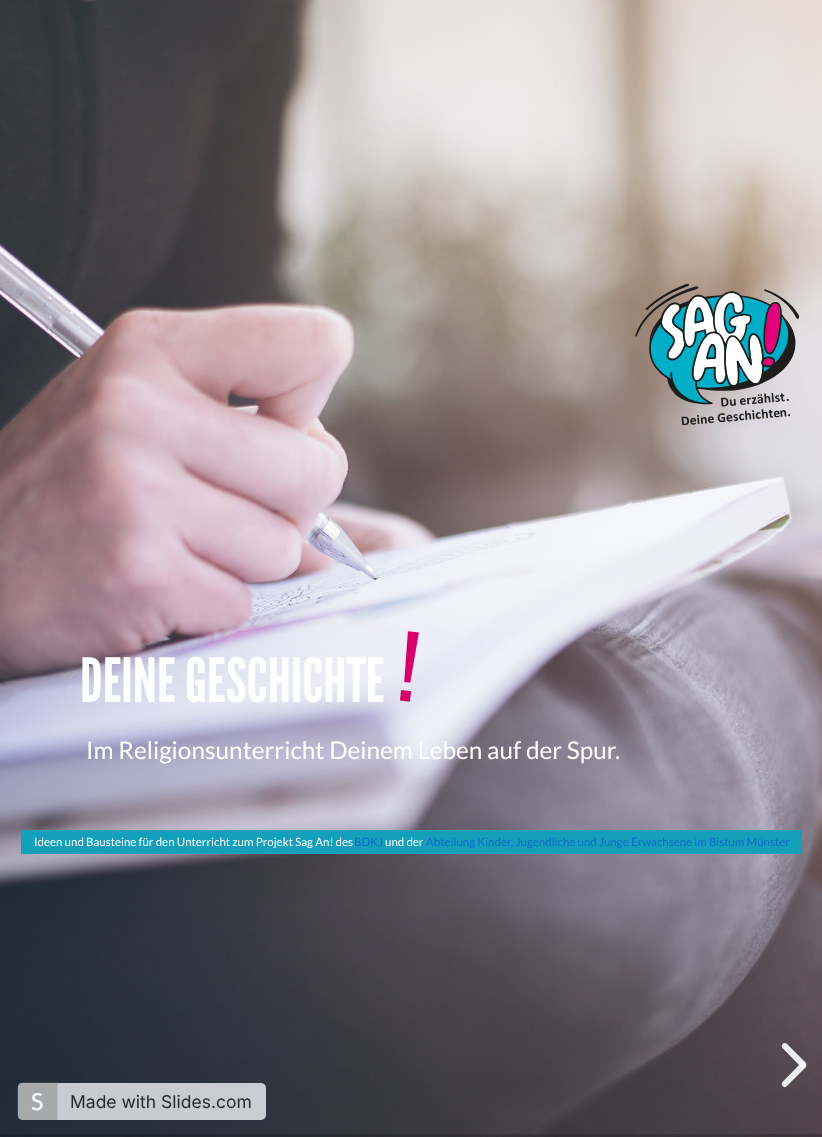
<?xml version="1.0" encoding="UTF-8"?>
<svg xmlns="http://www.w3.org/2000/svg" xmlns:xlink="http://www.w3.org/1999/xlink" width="822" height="1137">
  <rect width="100%" height="100%" fill="#ffffff" />
  <image x="0" y="0" width="822" height="1137" xlink:href="image1.png" />
  <image x="635" y="284" width="164" height="141" xlink:href="image2.png" />
  <rect x="21" y="830" width="781" height="24" fill="#149fba" />
  <path d="M 801 1067 l -18.5 -19 c -1 -1 -1 -3 0 -4 c 1.5 -1.5 3 -1.5 4.5 0 l 18.5 18.5 c 1 1 1 3 0 4.5 c -1 1 -3 1 -4.5 0 z" fill="#ffffff" fill-opacity="0.9" />
  <path d="M 805.5 1067.5 l -18.5 18.5 c -1.5 1.5 -3 1.5 -4.5 0 c -1 -1 -1 -3 0 -4 l 18.5 -19 c 1.5 -1 3.5 -1 4.5 0 c 1 1.5 1 3.5 0 4.5 z" fill="#ffffff" fill-opacity="0.9" />
  <rect y="1134" width="822" height="3" fill="#000000" fill-opacity="0.2" />
  <rect x="18" y="1083" width="248" height="37" rx="5" fill="#f2f3f9" fill-opacity="0.8" />
  <image x="17" y="1082" width="41" height="38" xlink:href="image3.png" />
  <text x="80" y="702" style="font-family: League Gothic; font-size: 61px; fill: #ffffff">DEINE GESCHICHTE</text>
  <text x="396" y="700" transform="rotate(7 396 700)" style="font-family: League Gothic; font-size: 95px; fill: #d80067">!</text>
  <text x="86" y="759" style="font-family: Lato; font-size: 24.4px; fill: #ffffff">Im Religionsunterricht Deinem Leben auf der Spur.</text>
  <text x="34" y="846" style="font-family: Lato; font-size: 11.5px; fill: #ffffff">Ideen und Bausteine für den Unterricht zum Projekt Sag An! des</text>
  <text x="354" y="846" style="font-family: Lato; font-size: 11.5px; fill: #106bcc">BDKJ</text>
  <text x="385" y="846" style="font-family: Lato; font-size: 11.5px; fill: #ffffff">und der</text>
  <text x="426" y="846" style="font-family: Lato; font-size: 11.5px; fill: #106bcc">Abteilung Kinder, Jugendliche und Junge Erwachsene im Bistum Münster</text>
  <text x="70" y="1108" style="font-family: Inter; font-size: 17.5px; fill: #28292a">Made with Slides.com</text>
</svg>
